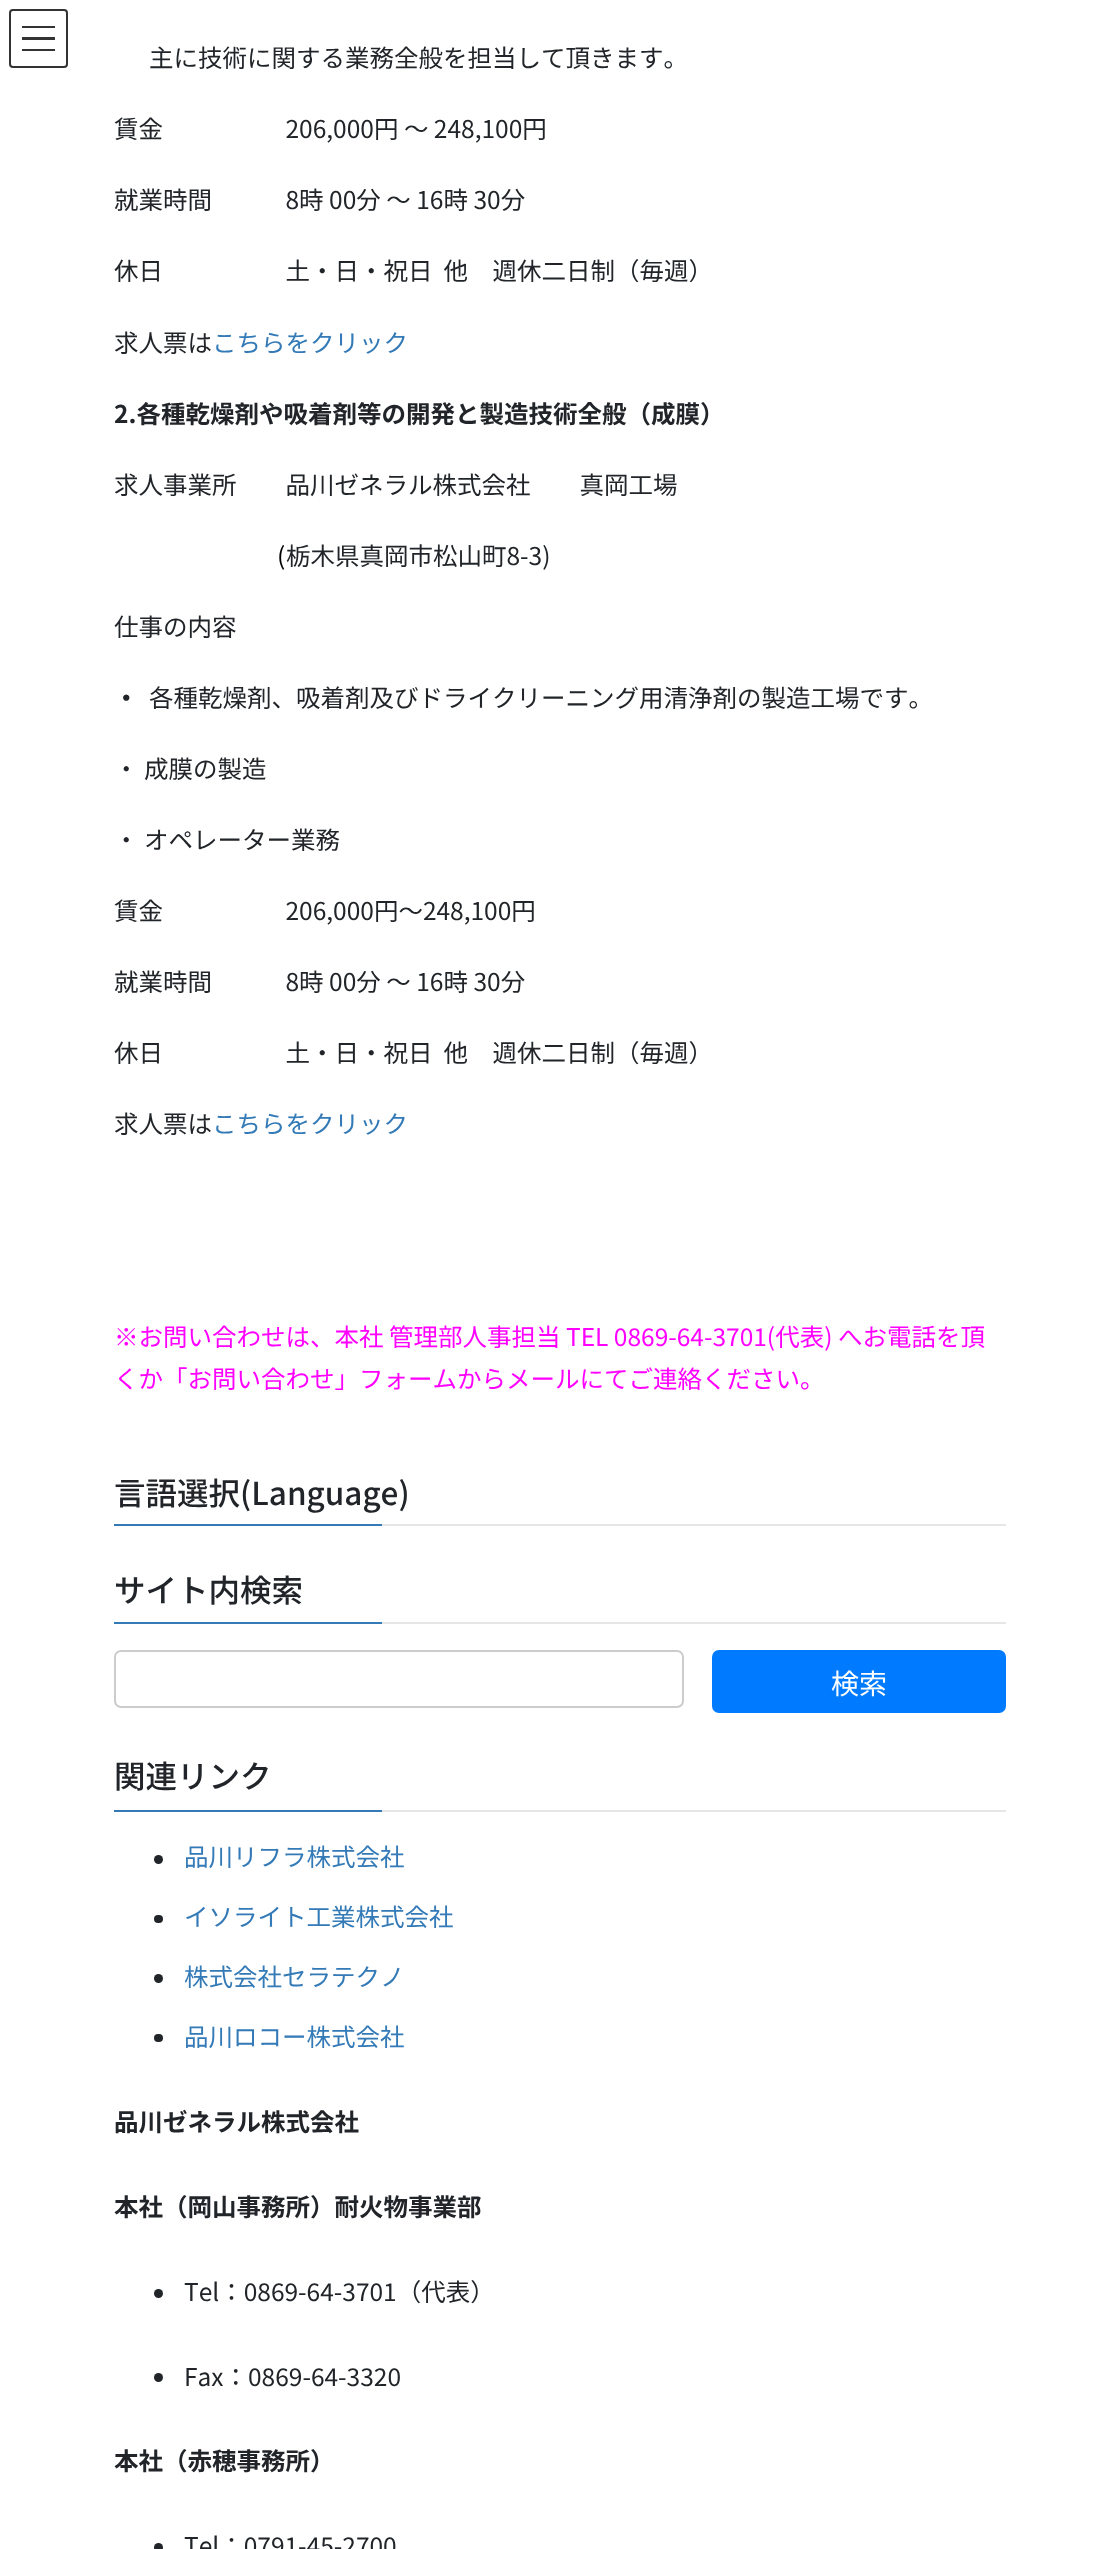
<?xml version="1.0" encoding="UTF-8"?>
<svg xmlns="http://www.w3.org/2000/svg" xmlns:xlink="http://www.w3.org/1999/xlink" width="1119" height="2549">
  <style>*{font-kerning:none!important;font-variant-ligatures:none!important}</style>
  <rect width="100%" height="100%" fill="#ffffff" />
  <rect x="22" y="26" width="33" height="2" fill="#333333" />
  <rect x="22" y="37" width="33" height="3" fill="#333333" />
  <rect x="22" y="49" width="33" height="2" fill="#333333" />
  <rect x="10" y="10" width="57" height="57" rx="3" fill="none" stroke="#333333" stroke-width="2" />
  <rect x="382" y="1524" width="624" height="2" fill="#e6e6e6" />
  <rect x="114" y="1524" width="268" height="2" fill="#337ab7" />
  <rect x="382" y="1622" width="624" height="2" fill="#e6e6e6" />
  <rect x="114" y="1622" width="268" height="2" fill="#337ab7" />
  <rect x="115" y="1651" width="568" height="56" rx="6" fill="none" stroke="#cccccc" stroke-width="2" />
  <rect x="712" y="1650" width="294" height="63" rx="7" fill="#007bff" />
  <rect x="382" y="1810" width="624" height="2" fill="#e6e6e6" />
  <rect x="114" y="1810" width="268" height="2" fill="#337ab7" />
  <circle cx="158.5" cy="1859.5" r="4.5" fill="#212529" />
  <rect x="154" y="1915" width="9" height="8" rx="4" fill="#212529" />
  <circle cx="158.5" cy="1978.5" r="4.5" fill="#212529" />
  <rect x="154" y="2034" width="9" height="8" rx="4" fill="#212529" />
  <circle cx="158.5" cy="2293.5" r="4.5" fill="#212529" />
  <circle cx="158.5" cy="2377.5" r="4.5" fill="#212529" />
  <circle cx="158.5" cy="2547.5" r="4.5" fill="#212529" />
  <text x="149" y="67" style="font-family: Noto Sans JP; font-size: 24.5px; fill: #212529">主に技術に関する業務全般を担当して頂きます。</text>
  <text x="114" y="138" style="font-family: Noto Sans JP; font-size: 24.5px; fill: #212529">賃金　　　　　206,000円 ～ 248,100円</text>
  <text x="114" y="209" style="font-family: Noto Sans JP; font-size: 24.5px; fill: #212529">就業時間　　　8時 00分 ～ 16時 30分</text>
  <text x="114" y="280" style="font-family: Noto Sans JP; font-size: 24.5px; fill: #212529" xml:space="preserve">休日　　　　　土・日・祝日  他　週休二日制（毎週）</text>
  <text x="114" y="352" style="font-family: Noto Sans JP; font-size: 24.5px; fill: #212529">求人票は</text>
  <text x="212" y="352" style="font-family: Noto Sans JP; font-size: 24.5px; fill: #337ab7">こちらをクリック</text>
  <text x="114" y="423" style="font-family: Noto Sans JP; font-size: 24.5px; font-weight: bold; fill: #212529">2.各種乾燥剤や吸着剤等の開発と製造技術全般（成膜）</text>
  <text x="114" y="494" style="font-family: Noto Sans JP; font-size: 24.5px; fill: #212529">求人事業所　　品川ゼネラル株式会社　　真岡工場</text>
  <text x="277" y="565" style="font-family: Noto Sans JP; font-size: 24.5px; fill: #000000">(</text>
  <text x="286" y="565" style="font-family: Noto Sans JP; font-size: 24.5px; fill: #212529">栃木県真岡市松山町8-3)</text>
  <text x="114" y="636" style="font-family: Noto Sans JP; font-size: 24.5px; fill: #212529">仕事の内容</text>
  <text x="114" y="707" style="font-family: Noto Sans JP; font-size: 24.5px; font-weight: bold; fill: #212529">・</text>
  <text x="149" y="707" style="font-family: Noto Sans JP; font-size: 24.5px; fill: #212529">各種乾燥剤、吸着剤及びドライクリーニング用清浄剤の製造工場です。</text>
  <text x="114" y="778" style="font-family: Noto Sans JP; font-size: 24.5px; fill: #212529">・ 成膜の製造</text>
  <text x="114" y="849" style="font-family: Noto Sans JP; font-size: 24.5px; fill: #212529">・ オペレーター業務</text>
  <text x="114" y="920" style="font-family: Noto Sans JP; font-size: 24.5px; fill: #212529">賃金　　　　　206,000円～248,100円</text>
  <text x="114" y="991" style="font-family: Noto Sans JP; font-size: 24.5px; fill: #212529">就業時間　　　8時 00分 ～ 16時 30分</text>
  <text x="114" y="1062" style="font-family: Noto Sans JP; font-size: 24.5px; fill: #212529" xml:space="preserve">休日　　　　　土・日・祝日  他　週休二日制（毎週）</text>
  <text x="114" y="1133" style="font-family: Noto Sans JP; font-size: 24.5px; fill: #212529">求人票は</text>
  <text x="212" y="1133" style="font-family: Noto Sans JP; font-size: 24.5px; fill: #337ab7">こちらをクリック</text>
  <text x="114" y="1346" style="font-family: Noto Sans JP; font-size: 24.5px; fill: #ff00ff">※お問い合わせは、本社 管理部人事担当 TEL 0869-64-3701(代表) へお電話を頂</text>
  <text x="114" y="1388" style="font-family: Noto Sans JP; font-size: 24.5px; fill: #ff00ff">くか「お問い合わせ」フォームからメールにてご連絡ください。</text>
  <text x="114" y="1505" style="font-family: Noto Sans JP; font-size: 31.5px; font-weight: 500; fill: #212529">言語選択(Language)</text>
  <text x="114" y="1602" style="font-family: Noto Sans JP; font-size: 31.5px; font-weight: 500; fill: #212529">サイト内検索</text>
  <text x="831" y="1694" style="font-family: Noto Sans JP; font-size: 28px; fill: #ffffff">検索</text>
  <text x="114" y="1788" style="font-family: Noto Sans JP; font-size: 31.5px; font-weight: 500; fill: #212529">関連リンク</text>
  <text x="184" y="1866" style="font-family: Noto Sans JP; font-size: 24.5px; fill: #337ab7">品川リフラ株式会社</text>
  <text x="184" y="1926" style="font-family: Noto Sans JP; font-size: 24.5px; fill: #337ab7">イソライト工業株式会社</text>
  <text x="184" y="1986" style="font-family: Noto Sans JP; font-size: 24.5px; fill: #337ab7">株式会社セラテクノ</text>
  <text x="184" y="2046" style="font-family: Noto Sans JP; font-size: 24.5px; fill: #337ab7">品川ロコー株式会社</text>
  <text x="114" y="2131" style="font-family: Noto Sans JP; font-size: 24.5px; font-weight: bold; fill: #212529">品川ゼネラル株式会社</text>
  <text x="114" y="2216" style="font-family: Noto Sans JP; font-size: 24.5px; font-weight: bold; fill: #212529">本社（岡山事務所）耐火物事業部</text>
  <text x="184" y="2301" style="font-family: Noto Sans JP; font-size: 24.5px; fill: #212529">Tel：0869-64-3701（代表）</text>
  <text x="184" y="2386" style="font-family: Noto Sans JP; font-size: 24.5px; fill: #212529">Fax：0869-64-3320</text>
  <text x="114" y="2470" style="font-family: Noto Sans JP; font-size: 24.5px; font-weight: bold; fill: #212529">本社（赤穂事務所）</text>
  <text x="184" y="2555" style="font-family: Noto Sans JP; font-size: 24.5px; fill: #212529">Tel：0791-45-2700</text>
</svg>
